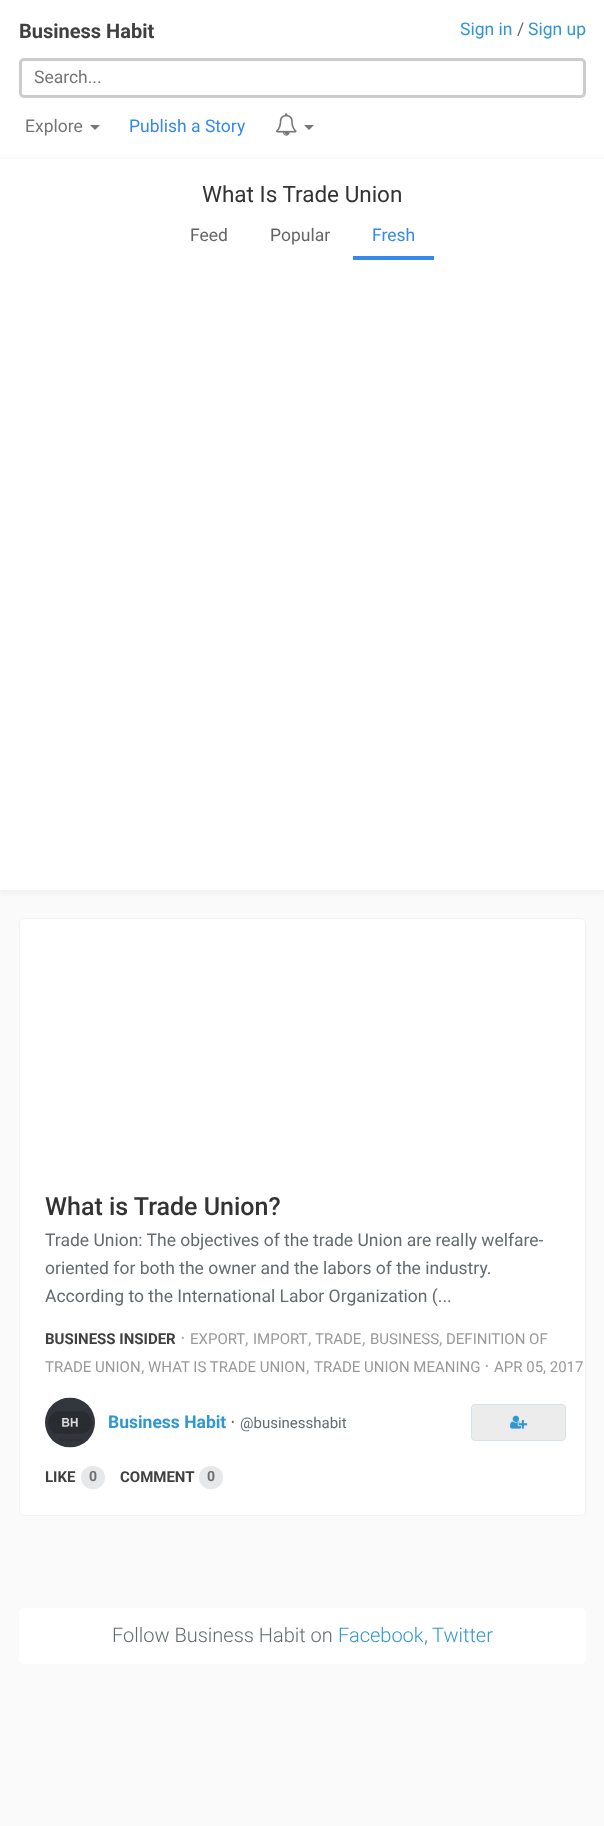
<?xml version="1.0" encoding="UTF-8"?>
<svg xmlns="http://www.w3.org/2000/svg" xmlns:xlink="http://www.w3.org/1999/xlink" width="604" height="1826">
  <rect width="100%" height="100%" fill="#fafafa" />
  <rect width="604" height="159" fill="#ffffff" />
  <rect x="20.5" y="59.5" width="564" height="37" rx="3.5" fill="none" stroke="#cccccc" stroke-width="3" />
  <path d="M 90 125 h 10 l -5 5 z" fill="#777777" />
  <image x="275" y="113" width="22" height="23" xlink:href="image1.png" />
  <path d="M 304 125 h 10 l -5 5 z" fill="#777777" />
  <rect x="-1" y="159" width="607" height="734" fill="#f0f0f0" filter="blur(2.5px)" />
  <rect y="159" width="604" height="731" fill="#ffffff" />
  <rect x="353" y="256" width="81" height="4" fill="#3489ea" />
  <rect x="19.5" y="918.5" width="566" height="597" rx="4.5" fill="#ffffff" stroke="#f1f2f9" />
  <image x="45" y="1397" width="50" height="51" xlink:href="image2.png" />
  <rect x="471.5" y="1404.5" width="94" height="36" rx="3.5" fill="#ececec" stroke="#d7e2e8" />
  <image x="510" y="1415" width="18" height="14" xlink:href="image3.png" />
  <rect x="81" y="1466" width="24" height="23" rx="11.5" fill="#e6e8e9" />
  <rect x="199" y="1466" width="24" height="23" rx="11.5" fill="#e6e8e9" />
  <rect x="19" y="1608" width="567" height="56" rx="5" fill="#ffffff" />
  <text x="19" y="38" style="font-family: Roboto; font-size: 20px; font-weight: bold; fill: #404040">Business Habit</text>
  <text x="460" y="35" style="font-family: Roboto; font-size: 17.5px; fill: #3097d1">Sign in</text>
  <text x="517" y="35" style="font-family: Roboto; font-size: 17.5px; fill: #636b6f">/</text>
  <text x="528" y="35" style="font-family: Roboto; font-size: 17.5px; fill: #3097d1">Sign up</text>
  <text x="34" y="83" style="font-family: Roboto; font-size: 17.5px; fill: #757575">Search...</text>
  <text x="25" y="132" style="font-family: Roboto; font-size: 17.5px; fill: #757575">Explore</text>
  <text x="129" y="132" style="font-family: Roboto; font-size: 17.5px; fill: #3489ea">Publish a Story</text>
  <text x="202" y="202" style="font-family: Roboto; font-size: 22.5px; fill: #333333">What Is Trade Union</text>
  <text x="190" y="241" style="font-family: Roboto; font-size: 17.5px; fill: #656565">Feed</text>
  <text x="270" y="241" style="font-family: Roboto; font-size: 17.5px; fill: #656565">Popular</text>
  <text x="372" y="241" style="font-family: Roboto; font-size: 17.5px; fill: #3489ea">Fresh</text>
  <text x="45" y="1215" style="font-family: Roboto; font-size: 25px; font-weight: 500; fill: #333333">What is Trade Union?</text>
  <text x="45" y="1246" style="font-family: Roboto; font-size: 17.5px; fill: #636b6f">Trade Union: The objectives of the trade Union are really welfare-</text>
  <text x="45" y="1274" style="font-family: Roboto; font-size: 17.5px; fill: #636b6f">oriented for both the owner and the labors of the industry.</text>
  <text x="45" y="1302" style="font-family: Roboto; font-size: 17.5px; fill: #636b6f">According to the International Labor Organization (...</text>
  <text x="45" y="1344" style="font-family: Roboto; font-size: 15px; font-weight: bold; fill: #404040">BUSINESS INSIDER</text>
  <text x="180" y="1344" style="font-family: DejaVu Sans; font-size: 17.5px; fill: #aaaaaa">⋅</text>
  <text x="190" y="1344" style="font-family: Roboto; font-size: 15px; fill: #999999">EXPORT</text>
  <text x="253" y="1344" style="font-family: Roboto; font-size: 15px; fill: #999999">IMPORT</text>
  <text x="315" y="1344" style="font-family: Roboto; font-size: 15px; fill: #999999">TRADE</text>
  <text x="370" y="1344" style="font-family: Roboto; font-size: 15px; fill: #999999">BUSINESS</text>
  <text x="446" y="1344" style="font-family: Roboto; font-size: 15px; fill: #999999">DEFINITION OF</text>
  <text x="245" y="1344" style="font-family: Roboto; font-size: 17.5px; fill: #aaaaaa">,</text>
  <text x="308" y="1344" style="font-family: Roboto; font-size: 17.5px; fill: #aaaaaa">,</text>
  <text x="362" y="1344" style="font-family: Roboto; font-size: 17.5px; fill: #aaaaaa">,</text>
  <text x="439" y="1344" style="font-family: Roboto; font-size: 17.5px; fill: #aaaaaa">,</text>
  <text x="45" y="1372" style="font-family: Roboto; font-size: 15px; fill: #999999">TRADE UNION</text>
  <text x="148" y="1372" style="font-family: Roboto; font-size: 15px; fill: #999999">WHAT IS TRADE UNION</text>
  <text x="314" y="1372" style="font-family: Roboto; font-size: 15px; fill: #999999">TRADE UNION MEANING</text>
  <text x="484" y="1372" style="font-family: DejaVu Sans; font-size: 17.5px; fill: #aaaaaa">⋅</text>
  <text x="494" y="1372" style="font-family: Roboto; font-size: 15px; fill: #999999">APR 05, 2017</text>
  <text x="141" y="1372" style="font-family: Roboto; font-size: 17.5px; fill: #aaaaaa">,</text>
  <text x="306" y="1372" style="font-family: Roboto; font-size: 17.5px; fill: #aaaaaa">,</text>
  <text x="108" y="1428" style="font-family: Roboto; font-size: 17.5px; font-weight: bold; fill: #3097d1">Business Habit</text>
  <text x="230" y="1428" style="font-family: DejaVu Sans; font-size: 17.5px; fill: #636b6f">⋅</text>
  <text x="240" y="1428" style="font-family: Roboto; font-size: 15px; fill: #636b6f">@businesshabit</text>
  <text x="45" y="1482" style="font-family: Roboto; font-size: 15px; font-weight: bold; fill: #404040">LIKE</text>
  <text x="89" y="1481" style="font-family: Roboto; font-size: 14px; font-weight: bold; fill: #706e6e">0</text>
  <text x="120" y="1482" style="font-family: Roboto; font-size: 15px; font-weight: bold; fill: #404040">COMMENT</text>
  <text x="207" y="1481" style="font-family: Roboto; font-size: 14px; font-weight: bold; fill: #706e6e">0</text>
  <text x="112" y="1642" style="font-family: Roboto; font-size: 20px; font-weight: 300; fill: #636b6f">Follow Business Habit on</text>
  <text x="338" y="1642" style="font-family: Roboto; font-size: 20px; font-weight: 300; fill: #3097d1">Facebook</text>
  <text x="424" y="1642" style="font-family: Roboto; font-size: 20px; font-weight: 300; fill: #636b6f">,</text>
  <text x="432" y="1642" style="font-family: Roboto; font-size: 20px; font-weight: 300; fill: #3097d1">Twitter</text>
</svg>
